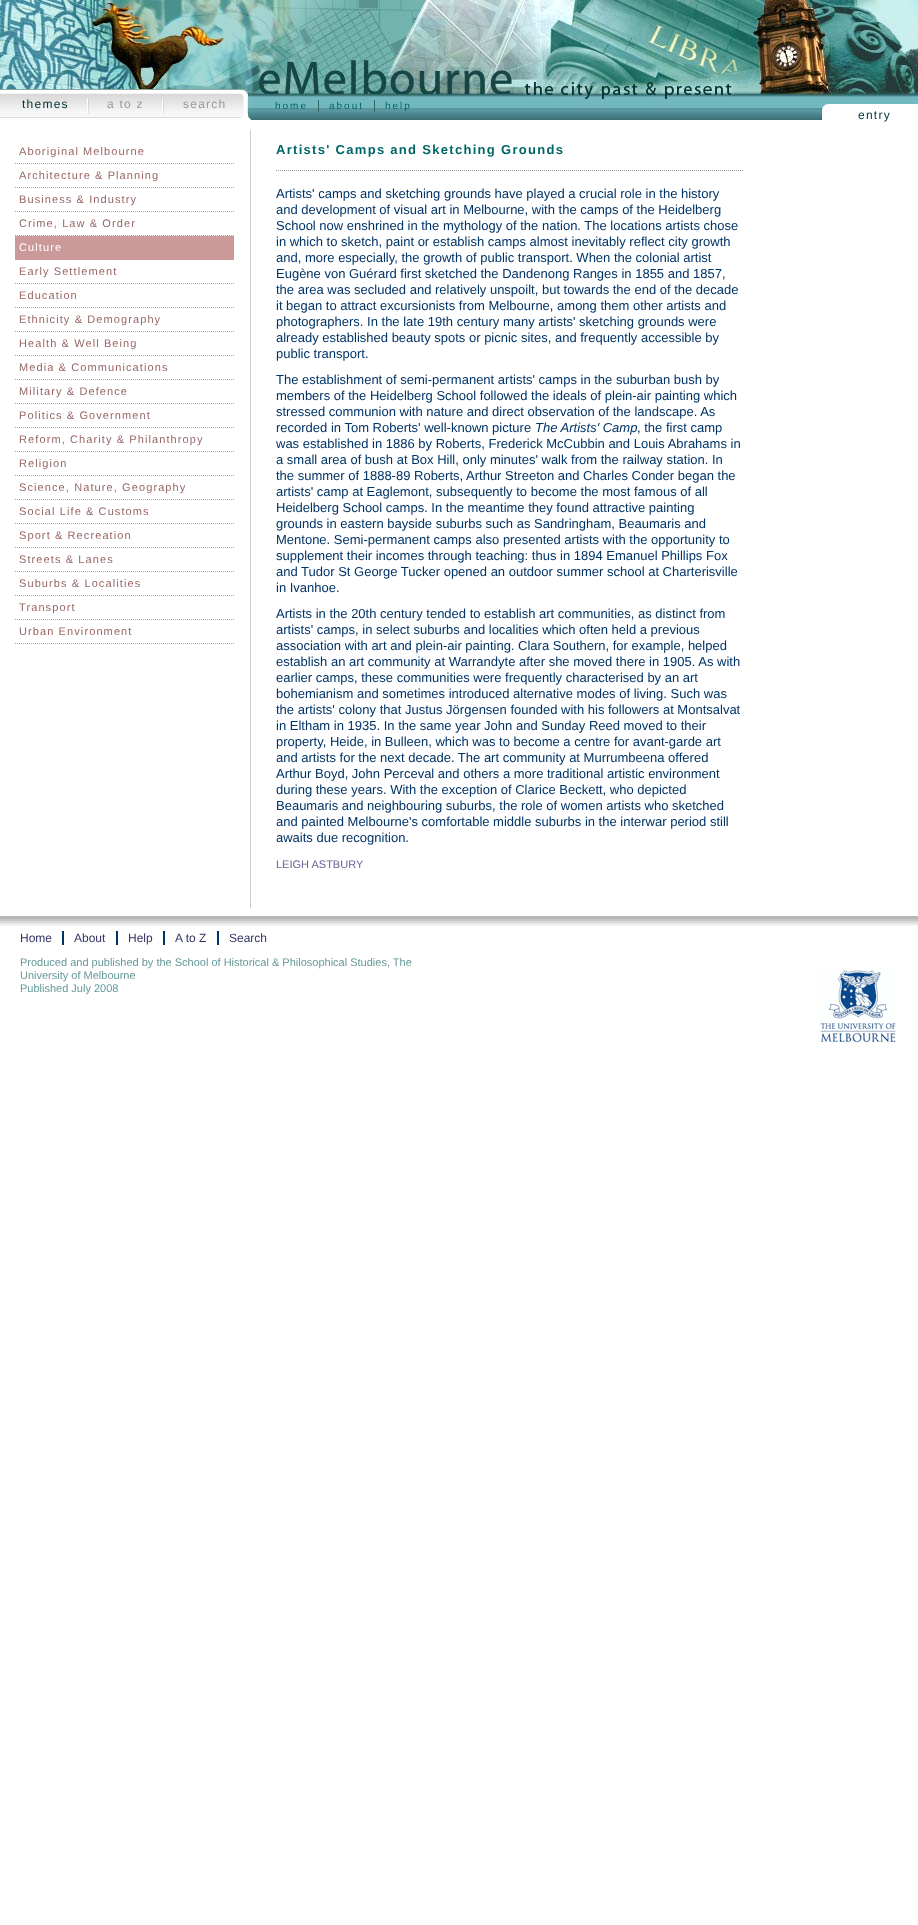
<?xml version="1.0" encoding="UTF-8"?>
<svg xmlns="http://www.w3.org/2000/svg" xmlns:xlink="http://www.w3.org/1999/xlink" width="918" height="1925">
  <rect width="100%" height="100%" fill="#ffffff" />
  <image x="0" y="0" width="918" height="120" xlink:href="image3.png" />
  <image x="0" y="89" width="251" height="31" xlink:href="image1.png" />
  <image x="820" y="104" width="98" height="16" xlink:href="image2.png" />
  <path d="M 15 163.5 h 219" fill="none" stroke="#cc9999" stroke-dasharray="1 1" />
  <path d="M 15 187.5 h 219" fill="none" stroke="#cc9999" stroke-dasharray="1 1" />
  <path d="M 15 211.5 h 219" fill="none" stroke="#cc9999" stroke-dasharray="1 1" />
  <path d="M 15 235.5 h 219" fill="none" stroke="#cc9999" stroke-dasharray="1 1" />
  <rect x="15" y="236" width="219" height="24" fill="#cc9999" />
  <path d="M 15 283.5 h 219" fill="none" stroke="#cc9999" stroke-dasharray="1 1" />
  <path d="M 15 307.5 h 219" fill="none" stroke="#cc9999" stroke-dasharray="1 1" />
  <path d="M 15 331.5 h 219" fill="none" stroke="#cc9999" stroke-dasharray="1 1" />
  <path d="M 15 355.5 h 219" fill="none" stroke="#cc9999" stroke-dasharray="1 1" />
  <path d="M 15 379.5 h 219" fill="none" stroke="#cc9999" stroke-dasharray="1 1" />
  <path d="M 15 403.5 h 219" fill="none" stroke="#cc9999" stroke-dasharray="1 1" />
  <path d="M 15 427.5 h 219" fill="none" stroke="#cc9999" stroke-dasharray="1 1" />
  <path d="M 15 451.5 h 219" fill="none" stroke="#cc9999" stroke-dasharray="1 1" />
  <path d="M 15 475.5 h 219" fill="none" stroke="#cc9999" stroke-dasharray="1 1" />
  <path d="M 15 499.5 h 219" fill="none" stroke="#cc9999" stroke-dasharray="1 1" />
  <path d="M 15 523.5 h 219" fill="none" stroke="#cc9999" stroke-dasharray="1 1" />
  <path d="M 15 547.5 h 219" fill="none" stroke="#cc9999" stroke-dasharray="1 1" />
  <path d="M 15 571.5 h 219" fill="none" stroke="#cc9999" stroke-dasharray="1 1" />
  <path d="M 15 595.5 h 219" fill="none" stroke="#cc9999" stroke-dasharray="1 1" />
  <path d="M 15 619.5 h 219" fill="none" stroke="#cc9999" stroke-dasharray="1 1" />
  <path d="M 15 643.5 h 219" fill="none" stroke="#cc9999" stroke-dasharray="1 1" />
  <rect x="250" y="130" width="1" height="778" fill="#cccccc" />
  <path d="M 276 170.5 h 467" fill="none" stroke="#999999" stroke-dasharray="1 1" />
  <rect x="318" y="100" width="1" height="12" fill="#336666" />
  <rect x="374" y="100" width="1" height="12" fill="#336666" />
  <image x="0" y="916" width="918" height="10" xlink:href="image4.png" />
  <rect x="62" y="931" width="2" height="14" fill="#003366" />
  <rect x="116" y="931" width="2" height="14" fill="#003366" />
  <rect x="163" y="931" width="2" height="14" fill="#003366" />
  <rect x="217" y="931" width="2" height="14" fill="#003366" />
  <image x="820" y="970" width="76" height="73" xlink:href="image5.png" />
  <text x="22" y="108" style="font-family: Liberation Sans; font-size: 12px; letter-spacing: 1.25px; fill: #003333">themes</text>
  <text x="107" y="108" style="font-family: Liberation Sans; font-size: 12px; letter-spacing: 1.25px; fill: #999999">a to z</text>
  <text x="183" y="108" style="font-family: Liberation Sans; font-size: 12px; letter-spacing: 1.25px; fill: #999999">search</text>
  <text x="858" y="119" style="font-family: Liberation Sans; font-size: 12px; letter-spacing: 1.25px; fill: #003333">entry</text>
  <text x="19" y="155" style="font-family: Liberation Sans; font-size: 11px; letter-spacing: 1.1px; fill: #996666">Aboriginal Melbourne</text>
  <text x="19" y="179" style="font-family: Liberation Sans; font-size: 11px; letter-spacing: 1.1px; fill: #996666">Architecture &amp; Planning</text>
  <text x="19" y="203" style="font-family: Liberation Sans; font-size: 11px; letter-spacing: 1.1px; fill: #996666">Business &amp; Industry</text>
  <text x="19" y="227" style="font-family: Liberation Sans; font-size: 11px; letter-spacing: 1.1px; fill: #996666">Crime, Law &amp; Order</text>
  <text x="19" y="251" style="font-family: Liberation Sans; font-size: 11px; letter-spacing: 1.1px; fill: #ffffff">Culture</text>
  <text x="19" y="275" style="font-family: Liberation Sans; font-size: 11px; letter-spacing: 1.1px; fill: #996666">Early Settlement</text>
  <text x="19" y="299" style="font-family: Liberation Sans; font-size: 11px; letter-spacing: 1.1px; fill: #996666">Education</text>
  <text x="19" y="323" style="font-family: Liberation Sans; font-size: 11px; letter-spacing: 1.1px; fill: #996666">Ethnicity &amp; Demography</text>
  <text x="19" y="347" style="font-family: Liberation Sans; font-size: 11px; letter-spacing: 1.1px; fill: #996666">Health &amp; Well Being</text>
  <text x="19" y="371" style="font-family: Liberation Sans; font-size: 11px; letter-spacing: 1.1px; fill: #996666">Media &amp; Communications</text>
  <text x="19" y="395" style="font-family: Liberation Sans; font-size: 11px; letter-spacing: 1.1px; fill: #996666">Military &amp; Defence</text>
  <text x="19" y="419" style="font-family: Liberation Sans; font-size: 11px; letter-spacing: 1.1px; fill: #996666">Politics &amp; Government</text>
  <text x="19" y="443" style="font-family: Liberation Sans; font-size: 11px; letter-spacing: 1.1px; fill: #996666">Reform, Charity &amp; Philanthropy</text>
  <text x="19" y="467" style="font-family: Liberation Sans; font-size: 11px; letter-spacing: 1.1px; fill: #996666">Religion</text>
  <text x="19" y="491" style="font-family: Liberation Sans; font-size: 11px; letter-spacing: 1.1px; fill: #996666">Science, Nature, Geography</text>
  <text x="19" y="515" style="font-family: Liberation Sans; font-size: 11px; letter-spacing: 1.1px; fill: #996666">Social Life &amp; Customs</text>
  <text x="19" y="539" style="font-family: Liberation Sans; font-size: 11px; letter-spacing: 1.1px; fill: #996666">Sport &amp; Recreation</text>
  <text x="19" y="563" style="font-family: Liberation Sans; font-size: 11px; letter-spacing: 1.1px; fill: #996666">Streets &amp; Lanes</text>
  <text x="19" y="587" style="font-family: Liberation Sans; font-size: 11px; letter-spacing: 1.1px; fill: #996666">Suburbs &amp; Localities</text>
  <text x="19" y="611" style="font-family: Liberation Sans; font-size: 11px; letter-spacing: 1.1px; fill: #996666">Transport</text>
  <text x="19" y="635" style="font-family: Liberation Sans; font-size: 11px; letter-spacing: 1.1px; fill: #996666">Urban Environment</text>
  <text x="276" y="154" style="font-family: Liberation Sans; font-size: 13px; font-weight: bold; letter-spacing: 1.3px; fill: #006666">Artists' Camps and Sketching Grounds</text>
  <text x="276" y="198" style="font-family: Liberation Sans; font-size: 13px; fill: #003366">Artists' camps and sketching grounds have played a crucial role in the history</text>
  <text x="276" y="214" style="font-family: Liberation Sans; font-size: 13px; fill: #003366">and development of visual art in Melbourne, with the camps of the Heidelberg</text>
  <text x="276" y="230" style="font-family: Liberation Sans; font-size: 13px; fill: #003366">School now enshrined in the mythology of the nation. The locations artists chose</text>
  <text x="276" y="246" style="font-family: Liberation Sans; font-size: 13px; fill: #003366">in which to sketch, paint or establish camps almost inevitably reflect city growth</text>
  <text x="276" y="262" style="font-family: Liberation Sans; font-size: 13px; fill: #003366">and, more especially, the growth of public transport. When the colonial artist</text>
  <text x="276" y="278" style="font-family: Liberation Sans; font-size: 13px; fill: #003366">Eugène von Guérard first sketched the Dandenong Ranges in 1855 and 1857,</text>
  <text x="276" y="294" style="font-family: Liberation Sans; font-size: 13px; fill: #003366">the area was secluded and relatively unspoilt, but towards the end of the decade</text>
  <text x="276" y="310" style="font-family: Liberation Sans; font-size: 13px; fill: #003366">it began to attract excursionists from Melbourne, among them other artists and</text>
  <text x="276" y="326" style="font-family: Liberation Sans; font-size: 13px; fill: #003366">photographers. In the late 19th century many artists' sketching grounds were</text>
  <text x="276" y="342" style="font-family: Liberation Sans; font-size: 13px; fill: #003366">already established beauty spots or picnic sites, and frequently accessible by</text>
  <text x="276" y="358" style="font-family: Liberation Sans; font-size: 13px; fill: #003366">public transport.</text>
  <text x="276" y="384" style="font-family: Liberation Sans; font-size: 13px; fill: #003366">The establishment of semi-permanent artists' camps in the suburban bush by</text>
  <text x="276" y="400" style="font-family: Liberation Sans; font-size: 13px; fill: #003366">members of the Heidelberg School followed the ideals of plein-air painting which</text>
  <text x="276" y="416" style="font-family: Liberation Sans; font-size: 13px; fill: #003366">stressed communion with nature and direct observation of the landscape. As</text>
  <text x="276" y="432" style="font-family: Liberation Sans; font-size: 13px; fill: #003366">recorded in Tom Roberts' well-known picture</text>
  <text x="535" y="432" style="font-family: Liberation Sans; font-size: 13px; font-style: italic; fill: #003366">The Artists' Camp</text>
  <text x="637" y="432" style="font-family: Liberation Sans; font-size: 13px; fill: #003366">, the first camp</text>
  <text x="276" y="448" style="font-family: Liberation Sans; font-size: 13px; fill: #003366">was established in 1886 by Roberts, Frederick McCubbin and Louis Abrahams in</text>
  <text x="276" y="464" style="font-family: Liberation Sans; font-size: 13px; fill: #003366">a small area of bush at Box Hill, only minutes' walk from the railway station. In</text>
  <text x="276" y="480" style="font-family: Liberation Sans; font-size: 13px; fill: #003366">the summer of 1888-89 Roberts, Arthur Streeton and Charles Conder began the</text>
  <text x="276" y="496" style="font-family: Liberation Sans; font-size: 13px; fill: #003366">artists' camp at Eaglemont, subsequently to become the most famous of all</text>
  <text x="276" y="512" style="font-family: Liberation Sans; font-size: 13px; fill: #003366">Heidelberg School camps. In the meantime they found attractive painting</text>
  <text x="276" y="528" style="font-family: Liberation Sans; font-size: 13px; fill: #003366">grounds in eastern bayside suburbs such as Sandringham, Beaumaris and</text>
  <text x="276" y="544" style="font-family: Liberation Sans; font-size: 13px; fill: #003366">Mentone. Semi-permanent camps also presented artists with the opportunity to</text>
  <text x="276" y="560" style="font-family: Liberation Sans; font-size: 13px; fill: #003366">supplement their incomes through teaching: thus in 1894 Emanuel Phillips Fox</text>
  <text x="276" y="576" style="font-family: Liberation Sans; font-size: 13px; fill: #003366">and Tudor St George Tucker opened an outdoor summer school at Charterisville</text>
  <text x="276" y="592" style="font-family: Liberation Sans; font-size: 13px; fill: #003366">in Ivanhoe.</text>
  <text x="276" y="618" style="font-family: Liberation Sans; font-size: 13px; fill: #003366">Artists in the 20th century tended to establish art communities, as distinct from</text>
  <text x="276" y="634" style="font-family: Liberation Sans; font-size: 13px; fill: #003366">artists' camps, in select suburbs and localities which often held a previous</text>
  <text x="276" y="650" style="font-family: Liberation Sans; font-size: 13px; fill: #003366">association with art and plein-air painting. Clara Southern, for example, helped</text>
  <text x="276" y="666" style="font-family: Liberation Sans; font-size: 13px; fill: #003366">establish an art community at Warrandyte after she moved there in 1905. As with</text>
  <text x="276" y="682" style="font-family: Liberation Sans; font-size: 13px; fill: #003366">earlier camps, these communities were frequently characterised by an art</text>
  <text x="276" y="698" style="font-family: Liberation Sans; font-size: 13px; fill: #003366">bohemianism and sometimes introduced alternative modes of living. Such was</text>
  <text x="276" y="714" style="font-family: Liberation Sans; font-size: 13px; fill: #003366">the artists' colony that Justus Jörgensen founded with his followers at Montsalvat</text>
  <text x="276" y="730" style="font-family: Liberation Sans; font-size: 13px; fill: #003366">in Eltham in 1935. In the same year John and Sunday Reed moved to their</text>
  <text x="276" y="746" style="font-family: Liberation Sans; font-size: 13px; fill: #003366">property, Heide, in Bulleen, which was to become a centre for avant-garde art</text>
  <text x="276" y="762" style="font-family: Liberation Sans; font-size: 13px; fill: #003366">and artists for the next decade. The art community at Murrumbeena offered</text>
  <text x="276" y="778" style="font-family: Liberation Sans; font-size: 13px; fill: #003366">Arthur Boyd, John Perceval and others a more traditional artistic environment</text>
  <text x="276" y="794" style="font-family: Liberation Sans; font-size: 13px; fill: #003366">during these years. With the exception of Clarice Beckett, who depicted</text>
  <text x="276" y="810" style="font-family: Liberation Sans; font-size: 13px; fill: #003366">Beaumaris and neighbouring suburbs, the role of women artists who sketched</text>
  <text x="276" y="826" style="font-family: Liberation Sans; font-size: 13px; fill: #003366">and painted Melbourne's comfortable middle suburbs in the interwar period still</text>
  <text x="276" y="842" style="font-family: Liberation Sans; font-size: 13px; fill: #003366">awaits due recognition.</text>
  <text x="276" y="868" style="font-family: Liberation Sans; font-size: 11px; fill: #666699">LEIGH ASTBURY</text>
  <text x="275" y="109" style="font-family: Liberation Sans; font-size: 10px; letter-spacing: 2px; fill: #006666">home</text>
  <text x="329" y="109" style="font-family: Liberation Sans; font-size: 10px; letter-spacing: 2px; fill: #006666">about</text>
  <text x="385" y="109" style="font-family: Liberation Sans; font-size: 10px; letter-spacing: 2px; fill: #006666">help</text>
  <text x="20" y="942" style="font-family: Liberation Sans; font-size: 12px; fill: #333366">Home</text>
  <text x="74" y="942" style="font-family: Liberation Sans; font-size: 12px; fill: #333366">About</text>
  <text x="128" y="942" style="font-family: Liberation Sans; font-size: 12px; fill: #333366">Help</text>
  <text x="175" y="942" style="font-family: Liberation Sans; font-size: 12px; fill: #333366">A to Z</text>
  <text x="229" y="942" style="font-family: Liberation Sans; font-size: 12px; fill: #333366">Search</text>
  <text x="20" y="966" style="font-family: Liberation Sans; font-size: 11px; fill: #669999">Produced and published by the School of Historical &amp; Philosophical Studies, The</text>
  <text x="20" y="979" style="font-family: Liberation Sans; font-size: 11px; fill: #669999">University of Melbourne</text>
  <text x="20" y="992" style="font-family: Liberation Sans; font-size: 11px; fill: #669999">Published July 2008</text>
</svg>
